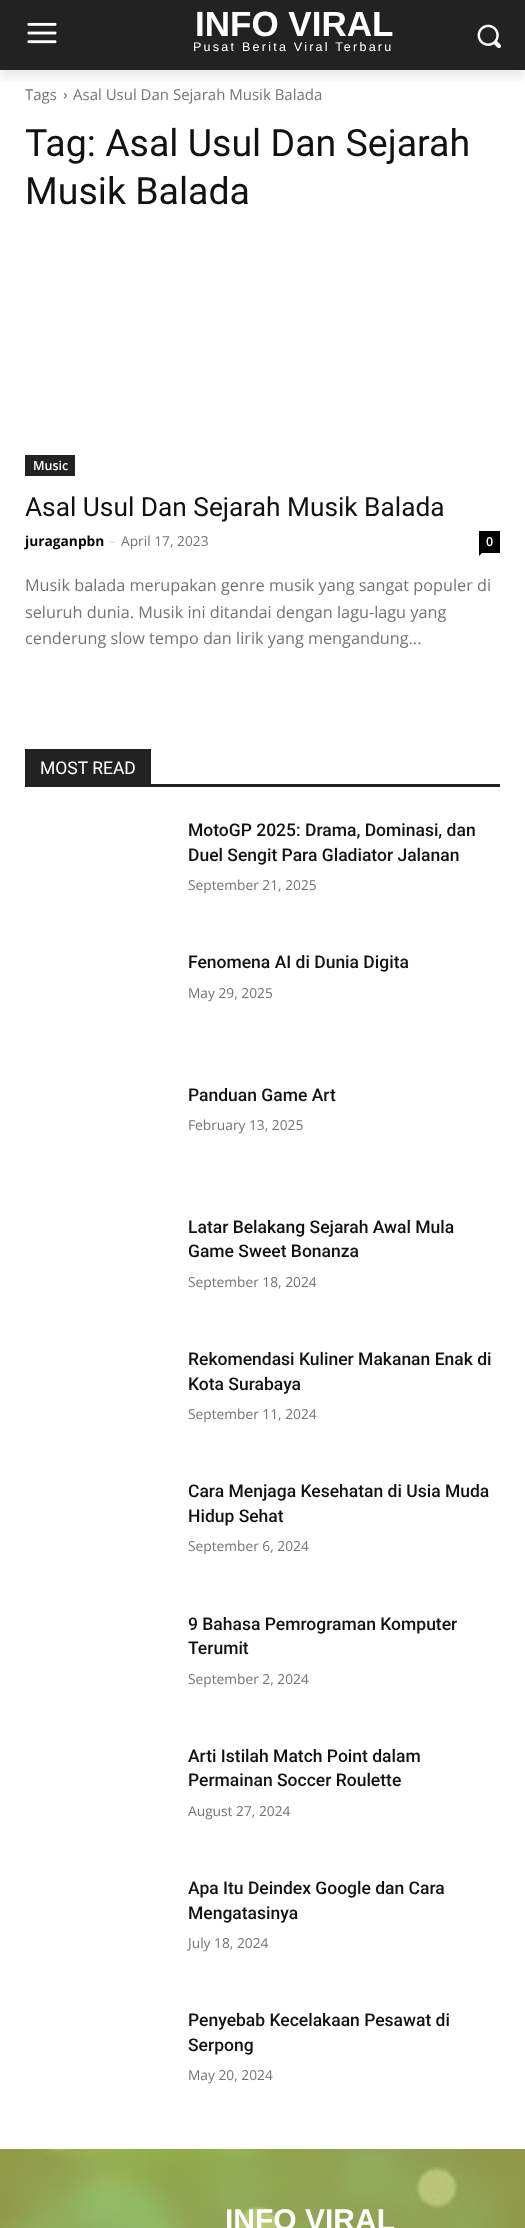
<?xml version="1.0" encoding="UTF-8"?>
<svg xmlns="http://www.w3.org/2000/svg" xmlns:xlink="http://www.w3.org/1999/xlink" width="525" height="2228">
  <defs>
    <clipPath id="clip1"><rect x="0" y="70" width="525" height="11" /></clipPath>
  </defs>
  <rect width="100%" height="100%" fill="#ffffff" />
  <rect width="525" height="70" fill="#222222" />
  <image x="27" y="22" width="30" height="22" xlink:href="image1.png" />
  <image x="477" y="24" width="24" height="25" xlink:href="image2.png" />
  <image x="63" y="92" width="5" height="7" xlink:href="image3.png" />
  <g clip-path="url(#clip1)">
    <rect y="8" width="525" height="70" fill="#000000" fill-opacity="0.08" filter="blur(5px)" />
  </g>
  <rect x="25" y="455" width="50" height="21" fill="#222222" />
  <rect x="479" y="531" width="21" height="22" fill="#000000" />
  <path d="M 479 552.5 h 3.5 l -3.5 3.5 z" fill="#000000" />
  <rect x="25" y="784" width="475" height="3" fill="#222222" />
  <rect x="25" y="749" width="126" height="35" fill="#222222" />
  <rect y="2149" width="525" height="79" fill="#d0d665" />
  <image x="0" y="2149" width="525" height="79" xlink:href="image4.png" />
  <text x="195" y="36" style="font-family: Liberation Sans; font-size: 35px; font-weight: bold; fill: #ffffff">INFO VIRAL</text>
  <text x="193" y="51" style="font-family: Liberation Sans; font-size: 12.5px; letter-spacing: 2.25px; fill: #ffffff">Pusat Berita Viral Terbaru</text>
  <text x="25" y="100" style="font-family: Open Sans; font-size: 15px; fill: #747474">Tags</text>
  <text x="73" y="100" style="font-family: Open Sans; font-size: 15px; fill: #747474">Asal Usul Dan Sejarah Musik Balada</text>
  <text x="25" y="156" style="font-family: Roboto; font-size: 37.5px; fill: #111111">Tag: Asal Usul Dan Sejarah</text>
  <text x="25" y="204" style="font-family: Roboto; font-size: 37.5px; fill: #111111">Musik Balada</text>
  <text x="33" y="470" style="font-family: Open Sans; font-size: 12.5px; font-weight: 600; fill: #ffffff">Music</text>
  <text x="25" y="516" style="font-family: Roboto; font-size: 26.25px; fill: #111111">Asal Usul Dan Sejarah Musik Balada</text>
  <text x="25" y="546" style="font-family: Open Sans; font-size: 13.75px; font-weight: bold; fill: #000000">juraganpbn</text>
  <text x="110" y="546" style="font-family: Open Sans; font-size: 13.75px; fill: #cccccc">-</text>
  <text x="121" y="546" style="font-family: Open Sans; font-size: 13.75px; fill: #747474">April 17, 2023</text>
  <text x="486" y="546" style="font-family: Open Sans; font-size: 12.5px; font-weight: 600; fill: #ffffff">0</text>
  <text x="25" y="591" style="font-family: Open Sans; font-size: 16.25px; fill: #747474">Musik balada merupakan genre musik yang sangat populer di</text>
  <text x="25" y="618" style="font-family: Open Sans; font-size: 16.25px; fill: #747474">seluruh dunia. Musik ini ditandai dengan lagu-lagu yang</text>
  <text x="25" y="644" style="font-family: Open Sans; font-size: 16.25px; fill: #747474">cenderung slow tempo dan lirik yang mengandung...</text>
  <text x="40" y="774" style="font-family: Roboto; font-size: 17.5px; fill: #ffffff">MOST READ</text>
  <text x="188" y="836" style="font-family: Roboto; font-size: 17.5px; font-weight: 500; fill: #111111">MotoGP 2025: Drama, Dominasi, dan</text>
  <text x="188" y="861" style="font-family: Roboto; font-size: 17.5px; font-weight: 500; fill: #111111">Duel Sengit Para Gladiator Jalanan</text>
  <text x="188" y="890" style="font-family: Open Sans; font-size: 13.75px; fill: #747474">September 21, 2025</text>
  <text x="188" y="968" style="font-family: Roboto; font-size: 17.5px; font-weight: 500; fill: #111111">Fenomena AI di Dunia Digita</text>
  <text x="188" y="998" style="font-family: Open Sans; font-size: 13.75px; fill: #747474">May 29, 2025</text>
  <text x="188" y="1101" style="font-family: Roboto; font-size: 17.5px; font-weight: 500; fill: #111111">Panduan Game Art</text>
  <text x="188" y="1130" style="font-family: Open Sans; font-size: 13.75px; fill: #747474">February 13, 2025</text>
  <text x="188" y="1233" style="font-family: Roboto; font-size: 17.5px; font-weight: 500; fill: #111111">Latar Belakang Sejarah Awal Mula</text>
  <text x="188" y="1257" style="font-family: Roboto; font-size: 17.5px; font-weight: 500; fill: #111111">Game Sweet Bonanza</text>
  <text x="188" y="1287" style="font-family: Open Sans; font-size: 13.75px; fill: #747474">September 18, 2024</text>
  <text x="188" y="1365" style="font-family: Roboto; font-size: 17.5px; font-weight: 500; fill: #111111">Rekomendasi Kuliner Makanan Enak di</text>
  <text x="188" y="1390" style="font-family: Roboto; font-size: 17.5px; font-weight: 500; fill: #111111">Kota Surabaya</text>
  <text x="188" y="1419" style="font-family: Open Sans; font-size: 13.75px; fill: #747474">September 11, 2024</text>
  <text x="188" y="1497" style="font-family: Roboto; font-size: 17.5px; font-weight: 500; fill: #111111">Cara Menjaga Kesehatan di Usia Muda</text>
  <text x="188" y="1522" style="font-family: Roboto; font-size: 17.5px; font-weight: 500; fill: #111111">Hidup Sehat</text>
  <text x="188" y="1551" style="font-family: Open Sans; font-size: 13.75px; fill: #747474">September 6, 2024</text>
  <text x="188" y="1630" style="font-family: Roboto; font-size: 17.5px; font-weight: 500; fill: #111111">9 Bahasa Pemrograman Komputer</text>
  <text x="188" y="1654" style="font-family: Roboto; font-size: 17.5px; font-weight: 500; fill: #111111">Terumit</text>
  <text x="188" y="1684" style="font-family: Open Sans; font-size: 13.75px; fill: #747474">September 2, 2024</text>
  <text x="188" y="1762" style="font-family: Roboto; font-size: 17.5px; font-weight: 500; fill: #111111">Arti Istilah Match Point dalam</text>
  <text x="188" y="1786" style="font-family: Roboto; font-size: 17.5px; font-weight: 500; fill: #111111">Permainan Soccer Roulette</text>
  <text x="188" y="1816" style="font-family: Open Sans; font-size: 13.75px; fill: #747474">August 27, 2024</text>
  <text x="188" y="1894" style="font-family: Roboto; font-size: 17.5px; font-weight: 500; fill: #111111">Apa Itu Deindex Google dan Cara</text>
  <text x="188" y="1919" style="font-family: Roboto; font-size: 17.5px; font-weight: 500; fill: #111111">Mengatasinya</text>
  <text x="188" y="1948" style="font-family: Open Sans; font-size: 13.75px; fill: #747474">July 18, 2024</text>
  <text x="188" y="2026" style="font-family: Roboto; font-size: 17.5px; font-weight: 500; fill: #111111">Penyebab Kecelakaan Pesawat di</text>
  <text x="188" y="2051" style="font-family: Roboto; font-size: 17.5px; font-weight: 500; fill: #111111">Serpong</text>
  <text x="188" y="2080" style="font-family: Open Sans; font-size: 13.75px; fill: #747474">May 20, 2024</text>
  <text x="225" y="2230" style="font-family: Liberation Sans; font-size: 30px; font-weight: bold; fill: #ffffff">INFO VIRAL</text>
</svg>
